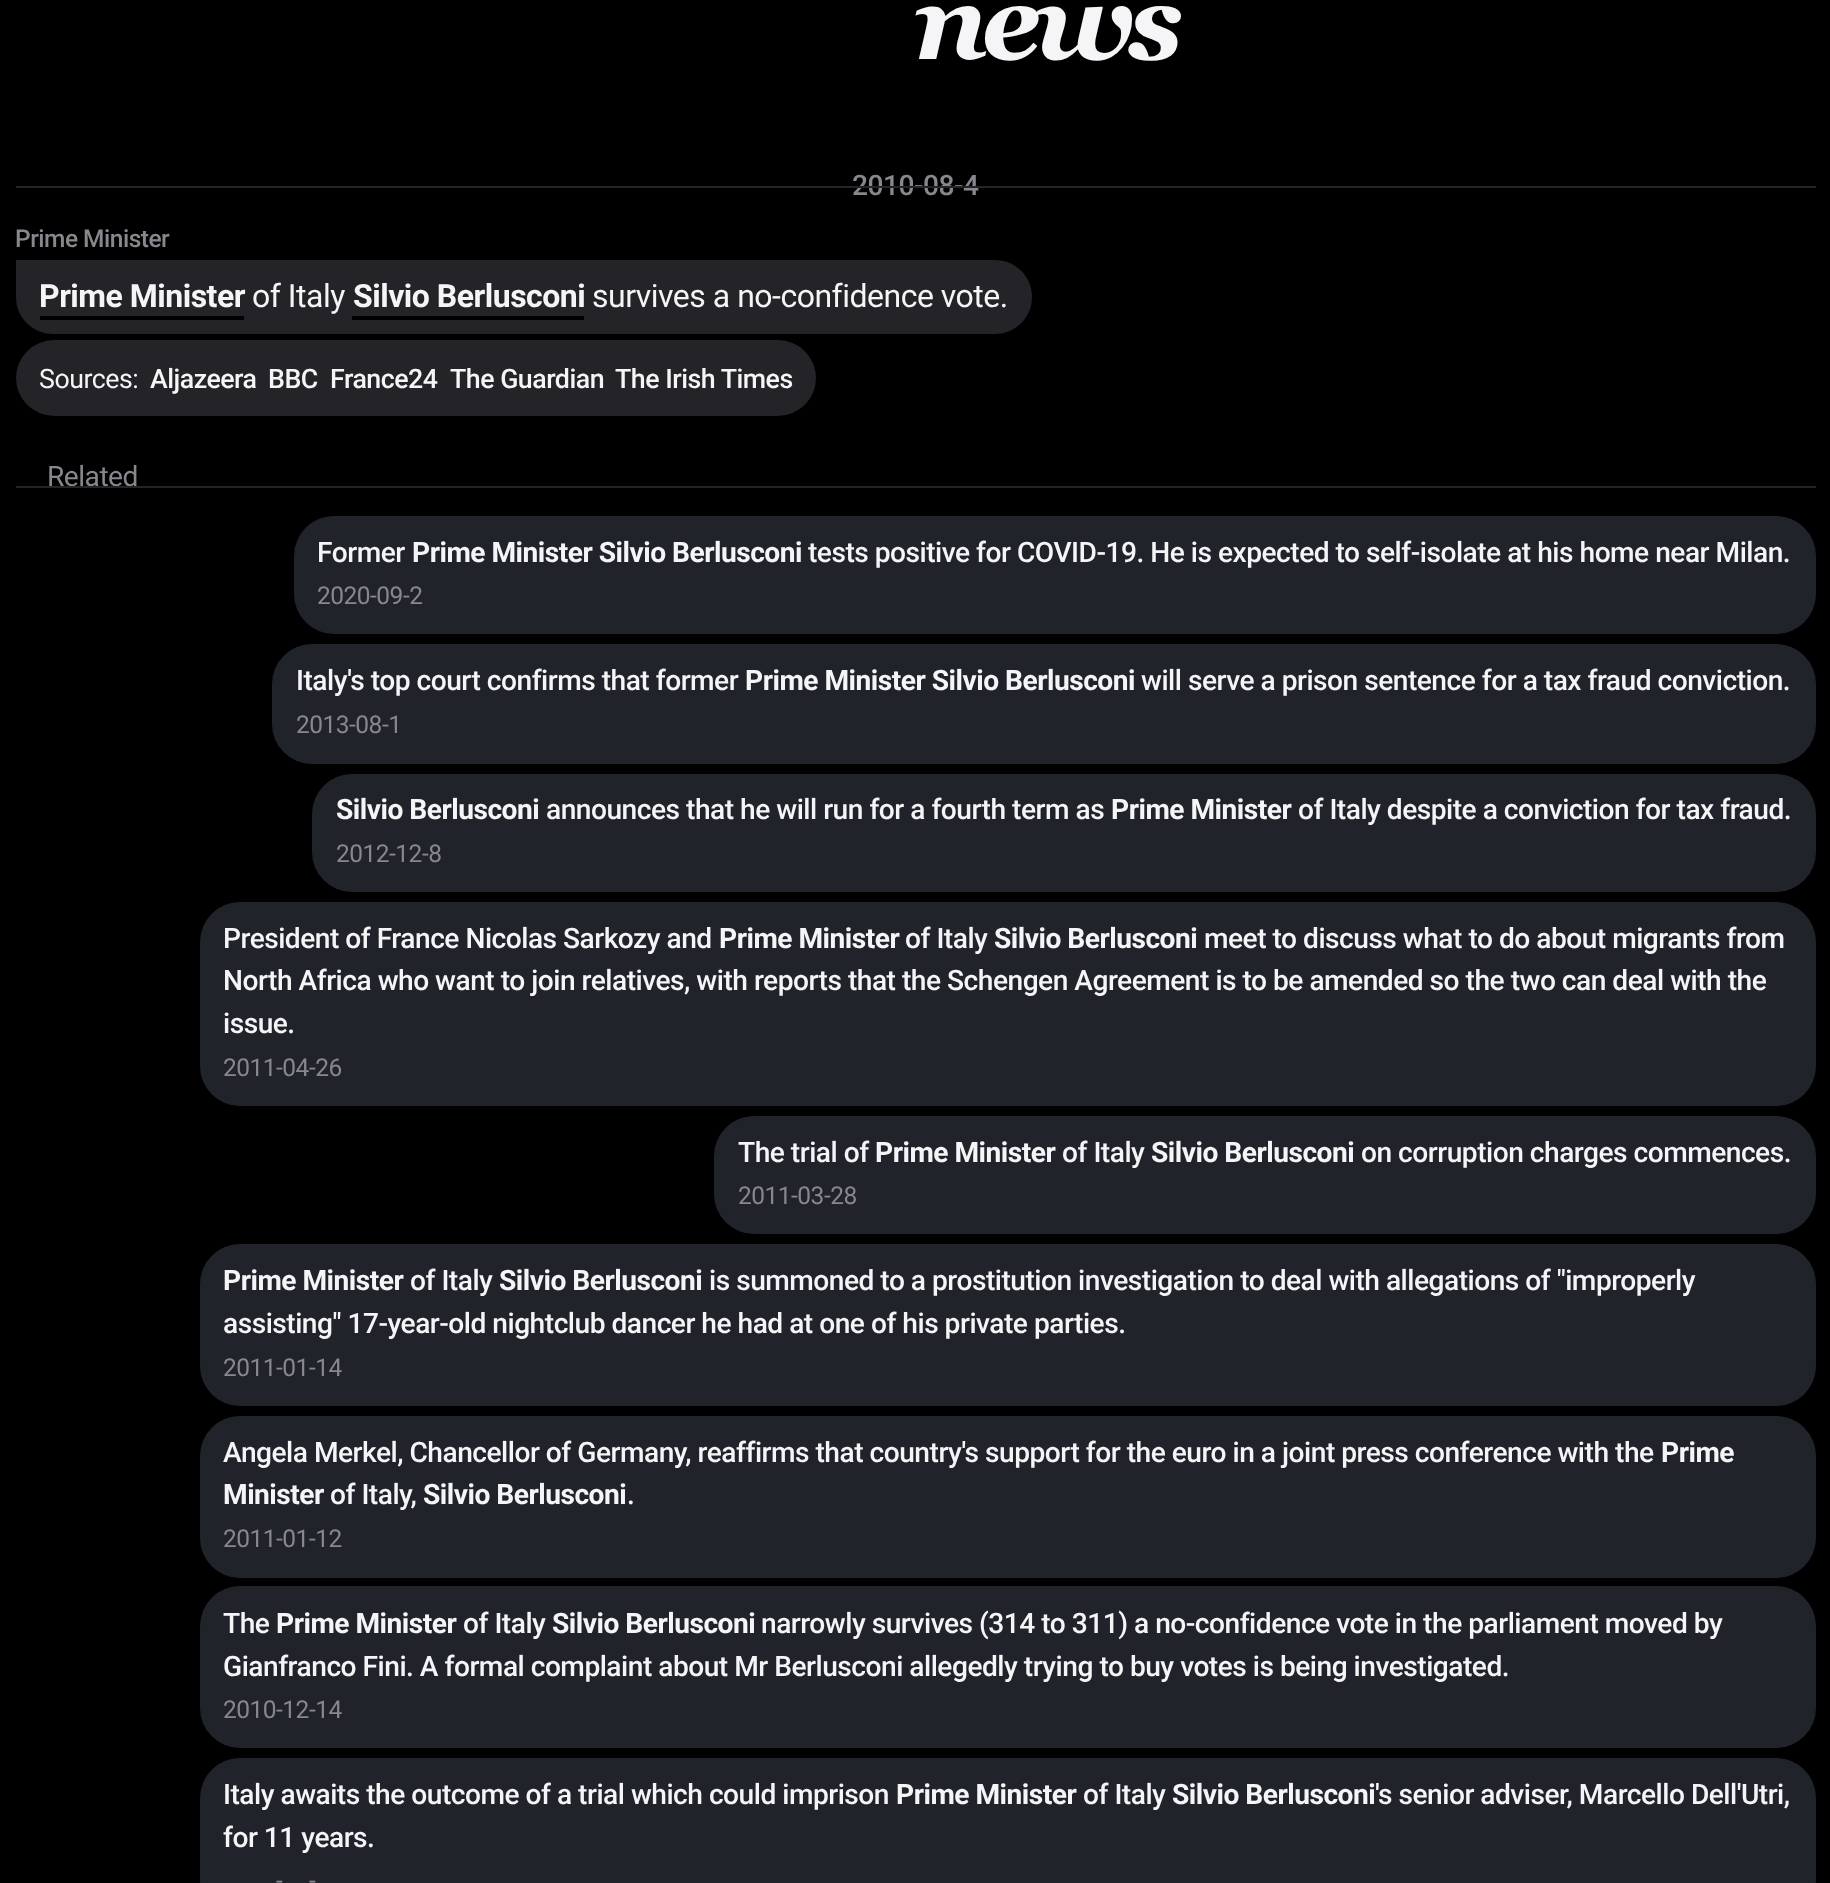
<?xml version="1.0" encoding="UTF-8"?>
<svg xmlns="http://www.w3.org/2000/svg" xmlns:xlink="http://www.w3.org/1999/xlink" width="1830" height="1883">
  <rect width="100%" height="100%" fill="#000000" />
  <path d="M 16 260 h 979 c 20.5 0 37 16.5 37 37 c 0 20.5 -16.5 37 -37 37 h -942 c -20.5 0 -37 -16.5 -37 -37 z" fill="#242328" />
  <rect x="40" y="316" width="204" height="4" fill="#000000" />
  <rect x="352" y="316" width="232" height="4" fill="#000000" />
  <rect x="16" y="340" width="800" height="76" rx="38" fill="#242328" />
  <rect x="294" y="516" width="1522" height="118" rx="40" fill="#20242a" />
  <rect x="272" y="644" width="1544" height="120" rx="40" fill="#20242a" />
  <rect x="312" y="774" width="1504" height="118" rx="40" fill="#20242a" />
  <rect x="200" y="902" width="1616" height="204" rx="40" fill="#20242a" />
  <rect x="714" y="1116" width="1102" height="118" rx="40" fill="#20242a" />
  <rect x="200" y="1244" width="1616" height="162" rx="40" fill="#20242a" />
  <rect x="200" y="1416" width="1616" height="162" rx="40" fill="#20242a" />
  <rect x="200" y="1586" width="1616" height="162" rx="40" fill="#20242a" />
  <rect x="200" y="1758" width="1616" height="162" rx="40" fill="#20242a" />
  <text x="914" y="59" style="font-family: Georgia; font-size: 107px; font-weight: bold; font-style: italic; letter-spacing: -6.5px; fill: #f5f5f7">news</text>
  <text x="852" y="195" style="font-family: Roboto; font-size: 28.15px; font-weight: 500; letter-spacing: -0.5px; fill: #88878d">2010-08-4</text>
  <rect x="16" y="186" width="1800" height="2" fill="#242328" />
  <text x="15" y="247" style="font-family: Roboto; font-size: 24.5px; font-weight: 500; letter-spacing: -0.5px; fill: #88878d">Prime Minister</text>
  <text x="39" y="307" style="font-family: Roboto; font-size: 32px; font-weight: bold; letter-spacing: -0.5px; fill: #f5f5f7">Prime Minister</text>
  <text x="252" y="307" style="font-family: Roboto; font-size: 32px; letter-spacing: -0.5px; fill: #f5f5f7">of Italy</text>
  <text x="353" y="307" style="font-family: Roboto; font-size: 32px; font-weight: bold; letter-spacing: -0.5px; fill: #f5f5f7">Silvio Berlusconi</text>
  <text x="592" y="307" style="font-family: Roboto; font-size: 32px; letter-spacing: -0.5px; fill: #f5f5f7">survives a no-confidence vote.</text>
  <text x="39" y="388" style="font-family: Roboto; font-size: 26.75px; letter-spacing: -0.5px; fill: #f5f5f7">Sources:</text>
  <text x="150" y="388" style="font-family: Roboto; font-size: 26.75px; font-weight: 500; letter-spacing: -0.5px; fill: #f5f5f7">Aljazeera</text>
  <text x="268" y="388" style="font-family: Roboto; font-size: 26.75px; font-weight: 500; letter-spacing: -0.5px; fill: #f5f5f7">BBC</text>
  <text x="330" y="388" style="font-family: Roboto; font-size: 26.75px; font-weight: 500; letter-spacing: -0.5px; fill: #f5f5f7">France24</text>
  <text x="450" y="388" style="font-family: Roboto; font-size: 26.75px; font-weight: 500; letter-spacing: -0.5px; fill: #f5f5f7">The Guardian</text>
  <text x="615" y="388" style="font-family: Roboto; font-size: 26.75px; font-weight: 500; letter-spacing: -0.5px; fill: #f5f5f7">The Irish Times</text>
  <text x="47" y="486" style="font-family: Roboto; font-size: 28.15px; letter-spacing: -0.5px; fill: #88878d">Related</text>
  <rect x="16" y="486" width="1800" height="2" fill="#242328" />
  <text x="317" y="562" style="font-family: Roboto; font-size: 28.15px; font-weight: 500; letter-spacing: -0.5px; fill: #f5f5f7">Former</text>
  <text x="412" y="562" style="font-family: Roboto; font-size: 28.15px; font-weight: bold; letter-spacing: -0.5px; fill: #f5f5f7">Prime Minister Silvio Berlusconi</text>
  <text x="808" y="562" style="font-family: Roboto; font-size: 28.15px; font-weight: 500; letter-spacing: -0.5px; fill: #f5f5f7">tests positive for COVID-19. He is expected to self-isolate at his home near Milan.</text>
  <text x="317" y="604" style="font-family: Roboto; font-size: 24.5px; letter-spacing: -0.5px; fill: #88878d">2020-09-2</text>
  <text x="296" y="690" style="font-family: Roboto; font-size: 28.15px; font-weight: 500; letter-spacing: -0.5px; fill: #f5f5f7">Italy's top court confirms that former</text>
  <text x="745" y="690" style="font-family: Roboto; font-size: 28.15px; font-weight: bold; letter-spacing: -0.5px; fill: #f5f5f7">Prime Minister Silvio Berlusconi</text>
  <text x="1141" y="690" style="font-family: Roboto; font-size: 28.15px; font-weight: 500; letter-spacing: -0.5px; fill: #f5f5f7">will serve a prison sentence for a tax fraud conviction.</text>
  <text x="296" y="733" style="font-family: Roboto; font-size: 24.5px; letter-spacing: -0.5px; fill: #88878d">2013-08-1</text>
  <text x="336" y="819" style="font-family: Roboto; font-size: 28.15px; font-weight: bold; letter-spacing: -0.5px; fill: #f5f5f7">Silvio Berlusconi</text>
  <text x="546" y="819" style="font-family: Roboto; font-size: 28.15px; font-weight: 500; letter-spacing: -0.5px; fill: #f5f5f7">announces that he will run for a fourth term as</text>
  <text x="1111" y="819" style="font-family: Roboto; font-size: 28.15px; font-weight: bold; letter-spacing: -0.5px; fill: #f5f5f7">Prime Minister</text>
  <text x="1298" y="819" style="font-family: Roboto; font-size: 28.15px; font-weight: 500; letter-spacing: -0.5px; fill: #f5f5f7">of Italy despite a conviction for tax fraud.</text>
  <text x="336" y="862" style="font-family: Roboto; font-size: 24.5px; letter-spacing: -0.5px; fill: #88878d">2012-12-8</text>
  <text x="223" y="948" style="font-family: Roboto; font-size: 28.15px; font-weight: 500; letter-spacing: -0.5px; fill: #f5f5f7">President of France Nicolas Sarkozy and</text>
  <text x="719" y="948" style="font-family: Roboto; font-size: 28.15px; font-weight: bold; letter-spacing: -0.5px; fill: #f5f5f7">Prime Minister</text>
  <text x="905" y="948" style="font-family: Roboto; font-size: 28.15px; font-weight: 500; letter-spacing: -0.5px; fill: #f5f5f7">of Italy</text>
  <text x="994" y="948" style="font-family: Roboto; font-size: 28.15px; font-weight: bold; letter-spacing: -0.5px; fill: #f5f5f7">Silvio Berlusconi</text>
  <text x="1204" y="948" style="font-family: Roboto; font-size: 28.15px; font-weight: 500; letter-spacing: -0.5px; fill: #f5f5f7">meet to discuss what to do about migrants from</text>
  <text x="223" y="990" style="font-family: Roboto; font-size: 28.15px; font-weight: 500; letter-spacing: -0.5px; fill: #f5f5f7">North Africa who want to join relatives, with reports that the Schengen Agreement is to be amended so the two can deal with the</text>
  <text x="223" y="1033" style="font-family: Roboto; font-size: 28.15px; font-weight: 500; letter-spacing: -0.5px; fill: #f5f5f7">issue.</text>
  <text x="223" y="1076" style="font-family: Roboto; font-size: 24.5px; letter-spacing: -0.5px; fill: #88878d">2011-04-26</text>
  <text x="738" y="1162" style="font-family: Roboto; font-size: 28.15px; font-weight: 500; letter-spacing: -0.5px; fill: #f5f5f7">The trial of</text>
  <text x="875" y="1162" style="font-family: Roboto; font-size: 28.15px; font-weight: bold; letter-spacing: -0.5px; fill: #f5f5f7">Prime Minister</text>
  <text x="1062" y="1162" style="font-family: Roboto; font-size: 28.15px; font-weight: 500; letter-spacing: -0.5px; fill: #f5f5f7">of Italy</text>
  <text x="1151" y="1162" style="font-family: Roboto; font-size: 28.15px; font-weight: bold; letter-spacing: -0.5px; fill: #f5f5f7">Silvio Berlusconi</text>
  <text x="1361" y="1162" style="font-family: Roboto; font-size: 28.15px; font-weight: 500; letter-spacing: -0.5px; fill: #f5f5f7">on corruption charges commences.</text>
  <text x="738" y="1204" style="font-family: Roboto; font-size: 24.5px; letter-spacing: -0.5px; fill: #88878d">2011-03-28</text>
  <text x="223" y="1290" style="font-family: Roboto; font-size: 28.15px; font-weight: bold; letter-spacing: -0.5px; fill: #f5f5f7">Prime Minister</text>
  <text x="410" y="1290" style="font-family: Roboto; font-size: 28.15px; font-weight: 500; letter-spacing: -0.5px; fill: #f5f5f7">of Italy</text>
  <text x="499" y="1290" style="font-family: Roboto; font-size: 28.15px; font-weight: bold; letter-spacing: -0.5px; fill: #f5f5f7">Silvio Berlusconi</text>
  <text x="709" y="1290" style="font-family: Roboto; font-size: 28.15px; font-weight: 500; letter-spacing: -0.5px; fill: #f5f5f7">is summoned to a prostitution investigation to deal with allegations of "improperly</text>
  <text x="223" y="1333" style="font-family: Roboto; font-size: 28.15px; font-weight: 500; letter-spacing: -0.5px; fill: #f5f5f7">assisting" 17-year-old nightclub dancer he had at one of his private parties.</text>
  <text x="223" y="1376" style="font-family: Roboto; font-size: 24.5px; letter-spacing: -0.5px; fill: #88878d">2011-01-14</text>
  <text x="223" y="1462" style="font-family: Roboto; font-size: 28.15px; font-weight: 500; letter-spacing: -0.5px; fill: #f5f5f7">Angela Merkel, Chancellor of Germany, reaffirms that country's support for the euro in a joint press conference with the</text>
  <text x="1661" y="1462" style="font-family: Roboto; font-size: 28.15px; font-weight: bold; letter-spacing: -0.5px; fill: #f5f5f7">Prime</text>
  <text x="223" y="1504" style="font-family: Roboto; font-size: 28.15px; font-weight: bold; letter-spacing: -0.5px; fill: #f5f5f7">Minister</text>
  <text x="330" y="1504" style="font-family: Roboto; font-size: 28.15px; font-weight: 500; letter-spacing: -0.5px; fill: #f5f5f7">of Italy,</text>
  <text x="423" y="1504" style="font-family: Roboto; font-size: 28.15px; font-weight: bold; letter-spacing: -0.5px; fill: #f5f5f7">Silvio Berlusconi</text>
  <text x="627" y="1504" style="font-family: Roboto; font-size: 28.15px; font-weight: 500; letter-spacing: -0.5px; fill: #f5f5f7">.</text>
  <text x="223" y="1547" style="font-family: Roboto; font-size: 24.5px; letter-spacing: -0.5px; fill: #88878d">2011-01-12</text>
  <text x="223" y="1633" style="font-family: Roboto; font-size: 28.15px; font-weight: 500; letter-spacing: -0.5px; fill: #f5f5f7">The</text>
  <text x="276" y="1633" style="font-family: Roboto; font-size: 28.15px; font-weight: bold; letter-spacing: -0.5px; fill: #f5f5f7">Prime Minister</text>
  <text x="463" y="1633" style="font-family: Roboto; font-size: 28.15px; font-weight: 500; letter-spacing: -0.5px; fill: #f5f5f7">of Italy</text>
  <text x="552" y="1633" style="font-family: Roboto; font-size: 28.15px; font-weight: bold; letter-spacing: -0.5px; fill: #f5f5f7">Silvio Berlusconi</text>
  <text x="761" y="1633" style="font-family: Roboto; font-size: 28.15px; font-weight: 500; letter-spacing: -0.5px; fill: #f5f5f7">narrowly survives (314 to 311) a no-confidence vote in the parliament moved by</text>
  <text x="223" y="1676" style="font-family: Roboto; font-size: 28.15px; font-weight: 500; letter-spacing: -0.5px; fill: #f5f5f7">Gianfranco Fini. A formal complaint about Mr Berlusconi allegedly trying to buy votes is being investigated.</text>
  <text x="223" y="1718" style="font-family: Roboto; font-size: 24.5px; letter-spacing: -0.5px; fill: #88878d">2010-12-14</text>
  <text x="223" y="1804" style="font-family: Roboto; font-size: 28.15px; font-weight: 500; letter-spacing: -0.5px; fill: #f5f5f7">Italy awaits the outcome of a trial which could imprison</text>
  <text x="896" y="1804" style="font-family: Roboto; font-size: 28.15px; font-weight: bold; letter-spacing: -0.5px; fill: #f5f5f7">Prime Minister</text>
  <text x="1083" y="1804" style="font-family: Roboto; font-size: 28.15px; font-weight: 500; letter-spacing: -0.5px; fill: #f5f5f7">of Italy</text>
  <text x="1172" y="1804" style="font-family: Roboto; font-size: 28.15px; font-weight: bold; letter-spacing: -0.5px; fill: #f5f5f7">Silvio Berlusconi</text>
  <text x="1375" y="1804" style="font-family: Roboto; font-size: 28.15px; font-weight: 500; letter-spacing: -0.5px; fill: #f5f5f7">'s senior adviser, Marcello Dell'Utri,</text>
  <text x="223" y="1847" style="font-family: Roboto; font-size: 28.15px; font-weight: 500; letter-spacing: -0.5px; fill: #f5f5f7">for 11 years.</text>
  <text x="276" y="1889" style="font-family: Roboto; font-size: 24.5px; letter-spacing: -0.5px; fill: #88878d">-</text>
  <text x="309" y="1889" style="font-family: Roboto; font-size: 24.5px; letter-spacing: -0.5px; fill: #88878d">-</text>
</svg>
